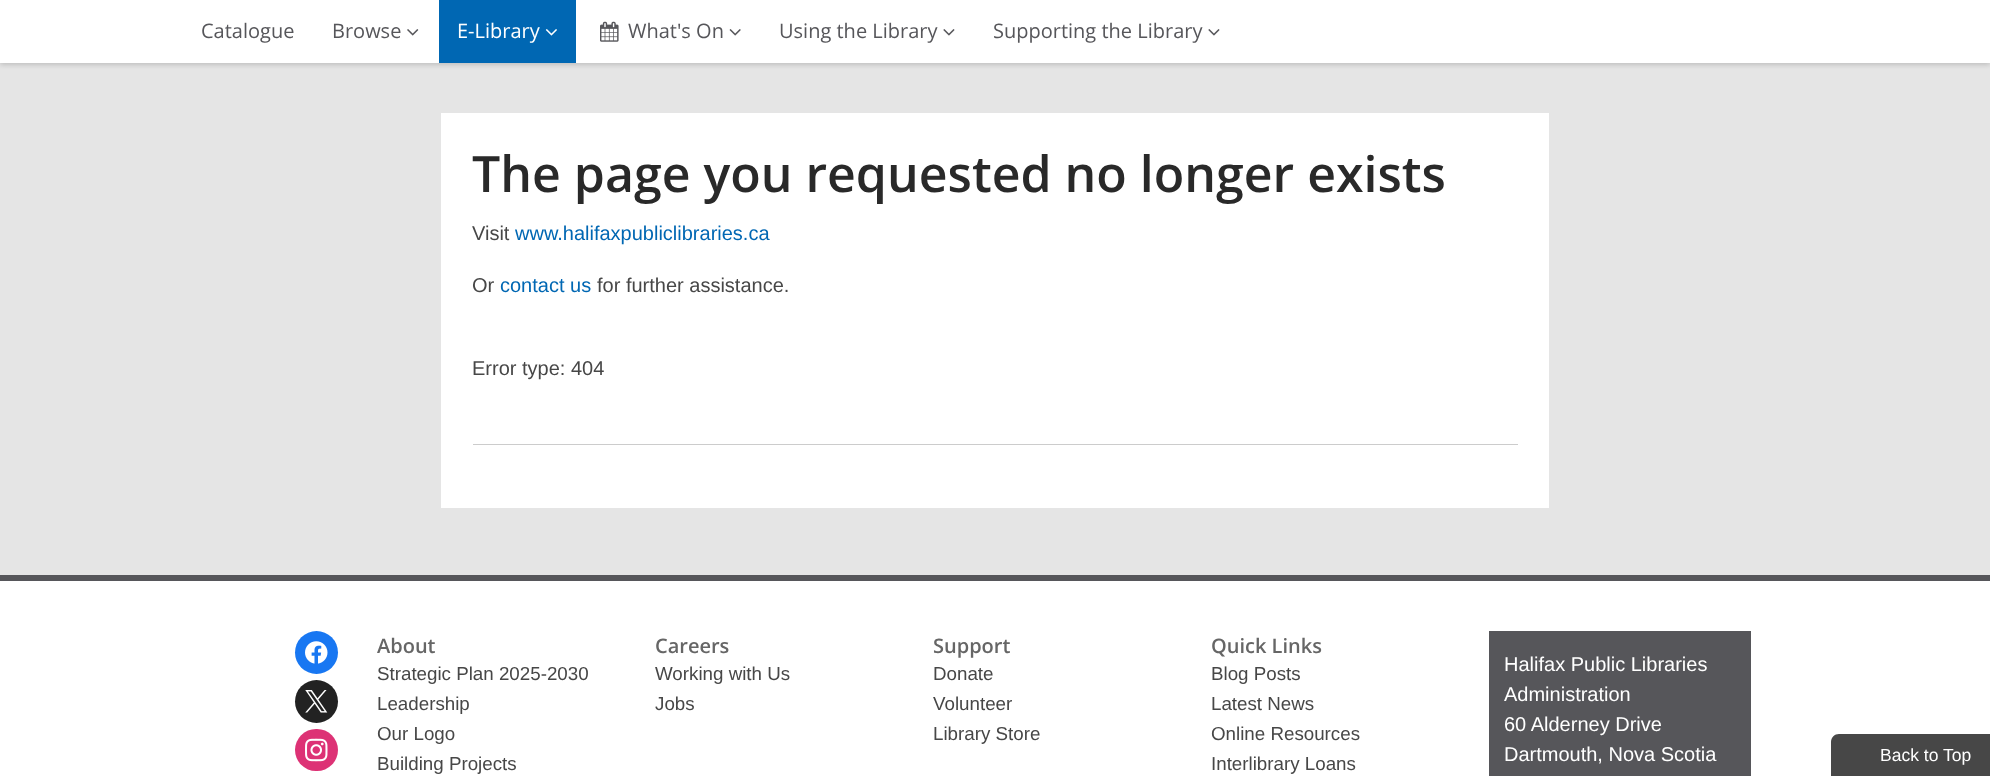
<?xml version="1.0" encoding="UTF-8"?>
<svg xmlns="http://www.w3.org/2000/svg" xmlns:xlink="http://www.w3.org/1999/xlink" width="1990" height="776">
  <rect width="100%" height="100%" fill="#e5e5e5" />
  <rect y="-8" width="1990" height="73" fill="#000000" fill-opacity="0.16" filter="blur(2.5px)" />
  <rect width="1990" height="63" fill="#ffffff" />
  <image x="407" y="29" width="12" height="7" xlink:href="image1.png" />
  <rect x="439" width="137" height="63" fill="#0067b3" />
  <image x="545" y="29" width="12" height="7" xlink:href="image2.png" />
  <image x="600" y="21" width="19" height="21" xlink:href="image3.png" />
  <image x="729" y="29" width="12" height="7" xlink:href="image4.png" />
  <image x="943" y="29" width="12" height="7" xlink:href="image5.png" />
  <image x="1208" y="29" width="12" height="7" xlink:href="image5.png" />
  <rect x="441" y="113" width="1108" height="395" fill="#ffffff" />
  <rect x="473" y="444" width="1045" height="1" fill="#cccccc" />
  <rect y="581" width="1990" height="195" fill="#ffffff" />
  <rect y="575" width="1990" height="6" fill="#56565a" />
  <circle cx="316.5" cy="652.5" r="21.5" fill="#1877f2" />
  <image x="305" y="641" width="23" height="23" xlink:href="image6.png" />
  <circle cx="316.5" cy="701.5" r="21.5" fill="#222222" />
  <image x="305" y="690" width="23" height="23" xlink:href="image7.png" />
  <rect x="295" y="729" width="43" height="42" rx="21" fill="#dd3275" />
  <image x="305" y="738" width="23" height="24" xlink:href="image8.png" />
  <rect x="1489" y="631" width="262" height="145" fill="#56565a" />
  <path d="M 1839 734 h 151 v 42 h -159 v -34 c 0 -4.5 3.5 -8 8 -8 z" fill="#474747" />
  <text x="201" y="38" style="font-family: Open Sans; font-size: 20px; fill: #56565a">Catalogue</text>
  <text x="332" y="38" style="font-family: Open Sans; font-size: 20px; fill: #56565a">Browse</text>
  <text x="457" y="38" style="font-family: Open Sans; font-size: 20px; fill: #ffffff">E-Library</text>
  <text x="628" y="38" style="font-family: Open Sans; font-size: 20px; fill: #56565a">What's On</text>
  <text x="779" y="38" style="font-family: Open Sans; font-size: 20px; fill: #56565a">Using the Library</text>
  <text x="993" y="38" style="font-family: Open Sans; font-size: 20px; fill: #56565a">Supporting the Library</text>
  <text x="472" y="192" style="font-family: Open Sans; font-size: 50px; font-weight: 600; fill: #292929">The page you requested no longer exists</text>
  <text x="472" y="240" style="font-family: Liberation Sans; font-size: 20px; fill: #474747">Visit</text>
  <text x="515" y="240" style="font-family: Liberation Sans; font-size: 20px; fill: #0067b3">www.halifaxpubliclibraries.ca</text>
  <text x="472" y="292" style="font-family: Liberation Sans; font-size: 20px; fill: #474747">Or</text>
  <text x="500" y="292" style="font-family: Liberation Sans; font-size: 20px; fill: #0067b3">contact us</text>
  <text x="597" y="292" style="font-family: Liberation Sans; font-size: 20px; fill: #474747">for further assistance.</text>
  <text x="472" y="375" style="font-family: Liberation Sans; font-size: 20px; fill: #474747">Error type: 404</text>
  <text x="377" y="653" style="font-family: Open Sans; font-size: 20px; font-weight: 600; fill: #666666">About</text>
  <text x="377" y="680" style="font-family: Liberation Sans; font-size: 18.75px; fill: #474747">Strategic Plan 2025-2030</text>
  <text x="377" y="710" style="font-family: Liberation Sans; font-size: 18.75px; fill: #474747">Leadership</text>
  <text x="377" y="740" style="font-family: Liberation Sans; font-size: 18.75px; fill: #474747">Our Logo</text>
  <text x="377" y="770" style="font-family: Liberation Sans; font-size: 18.75px; fill: #474747">Building Projects</text>
  <text x="655" y="653" style="font-family: Open Sans; font-size: 20px; font-weight: 600; fill: #666666">Careers</text>
  <text x="655" y="680" style="font-family: Liberation Sans; font-size: 18.75px; fill: #474747">Working with Us</text>
  <text x="655" y="710" style="font-family: Liberation Sans; font-size: 18.75px; fill: #474747">Jobs</text>
  <text x="933" y="653" style="font-family: Open Sans; font-size: 20px; font-weight: 600; fill: #666666">Support</text>
  <text x="933" y="680" style="font-family: Liberation Sans; font-size: 18.75px; fill: #474747">Donate</text>
  <text x="933" y="710" style="font-family: Liberation Sans; font-size: 18.75px; fill: #474747">Volunteer</text>
  <text x="933" y="740" style="font-family: Liberation Sans; font-size: 18.75px; fill: #474747">Library Store</text>
  <text x="1211" y="653" style="font-family: Open Sans; font-size: 20px; font-weight: 600; fill: #666666">Quick Links</text>
  <text x="1211" y="680" style="font-family: Liberation Sans; font-size: 18.75px; fill: #474747">Blog Posts</text>
  <text x="1211" y="710" style="font-family: Liberation Sans; font-size: 18.75px; fill: #474747">Latest News</text>
  <text x="1211" y="740" style="font-family: Liberation Sans; font-size: 18.75px; fill: #474747">Online Resources</text>
  <text x="1211" y="770" style="font-family: Liberation Sans; font-size: 18.75px; fill: #474747">Interlibrary Loans</text>
  <text x="1504" y="671" style="font-family: Liberation Sans; font-size: 20px; fill: #ffffff">Halifax Public Libraries</text>
  <text x="1504" y="701" style="font-family: Liberation Sans; font-size: 20px; fill: #ffffff">Administration</text>
  <text x="1504" y="731" style="font-family: Liberation Sans; font-size: 20px; fill: #ffffff">60 Alderney Drive</text>
  <text x="1504" y="761" style="font-family: Liberation Sans; font-size: 20px; fill: #ffffff">Dartmouth, Nova Scotia</text>
  <text x="1880" y="761" style="font-family: Liberation Sans; font-size: 17.5px; fill: #ffffff">Back to Top</text>
</svg>
